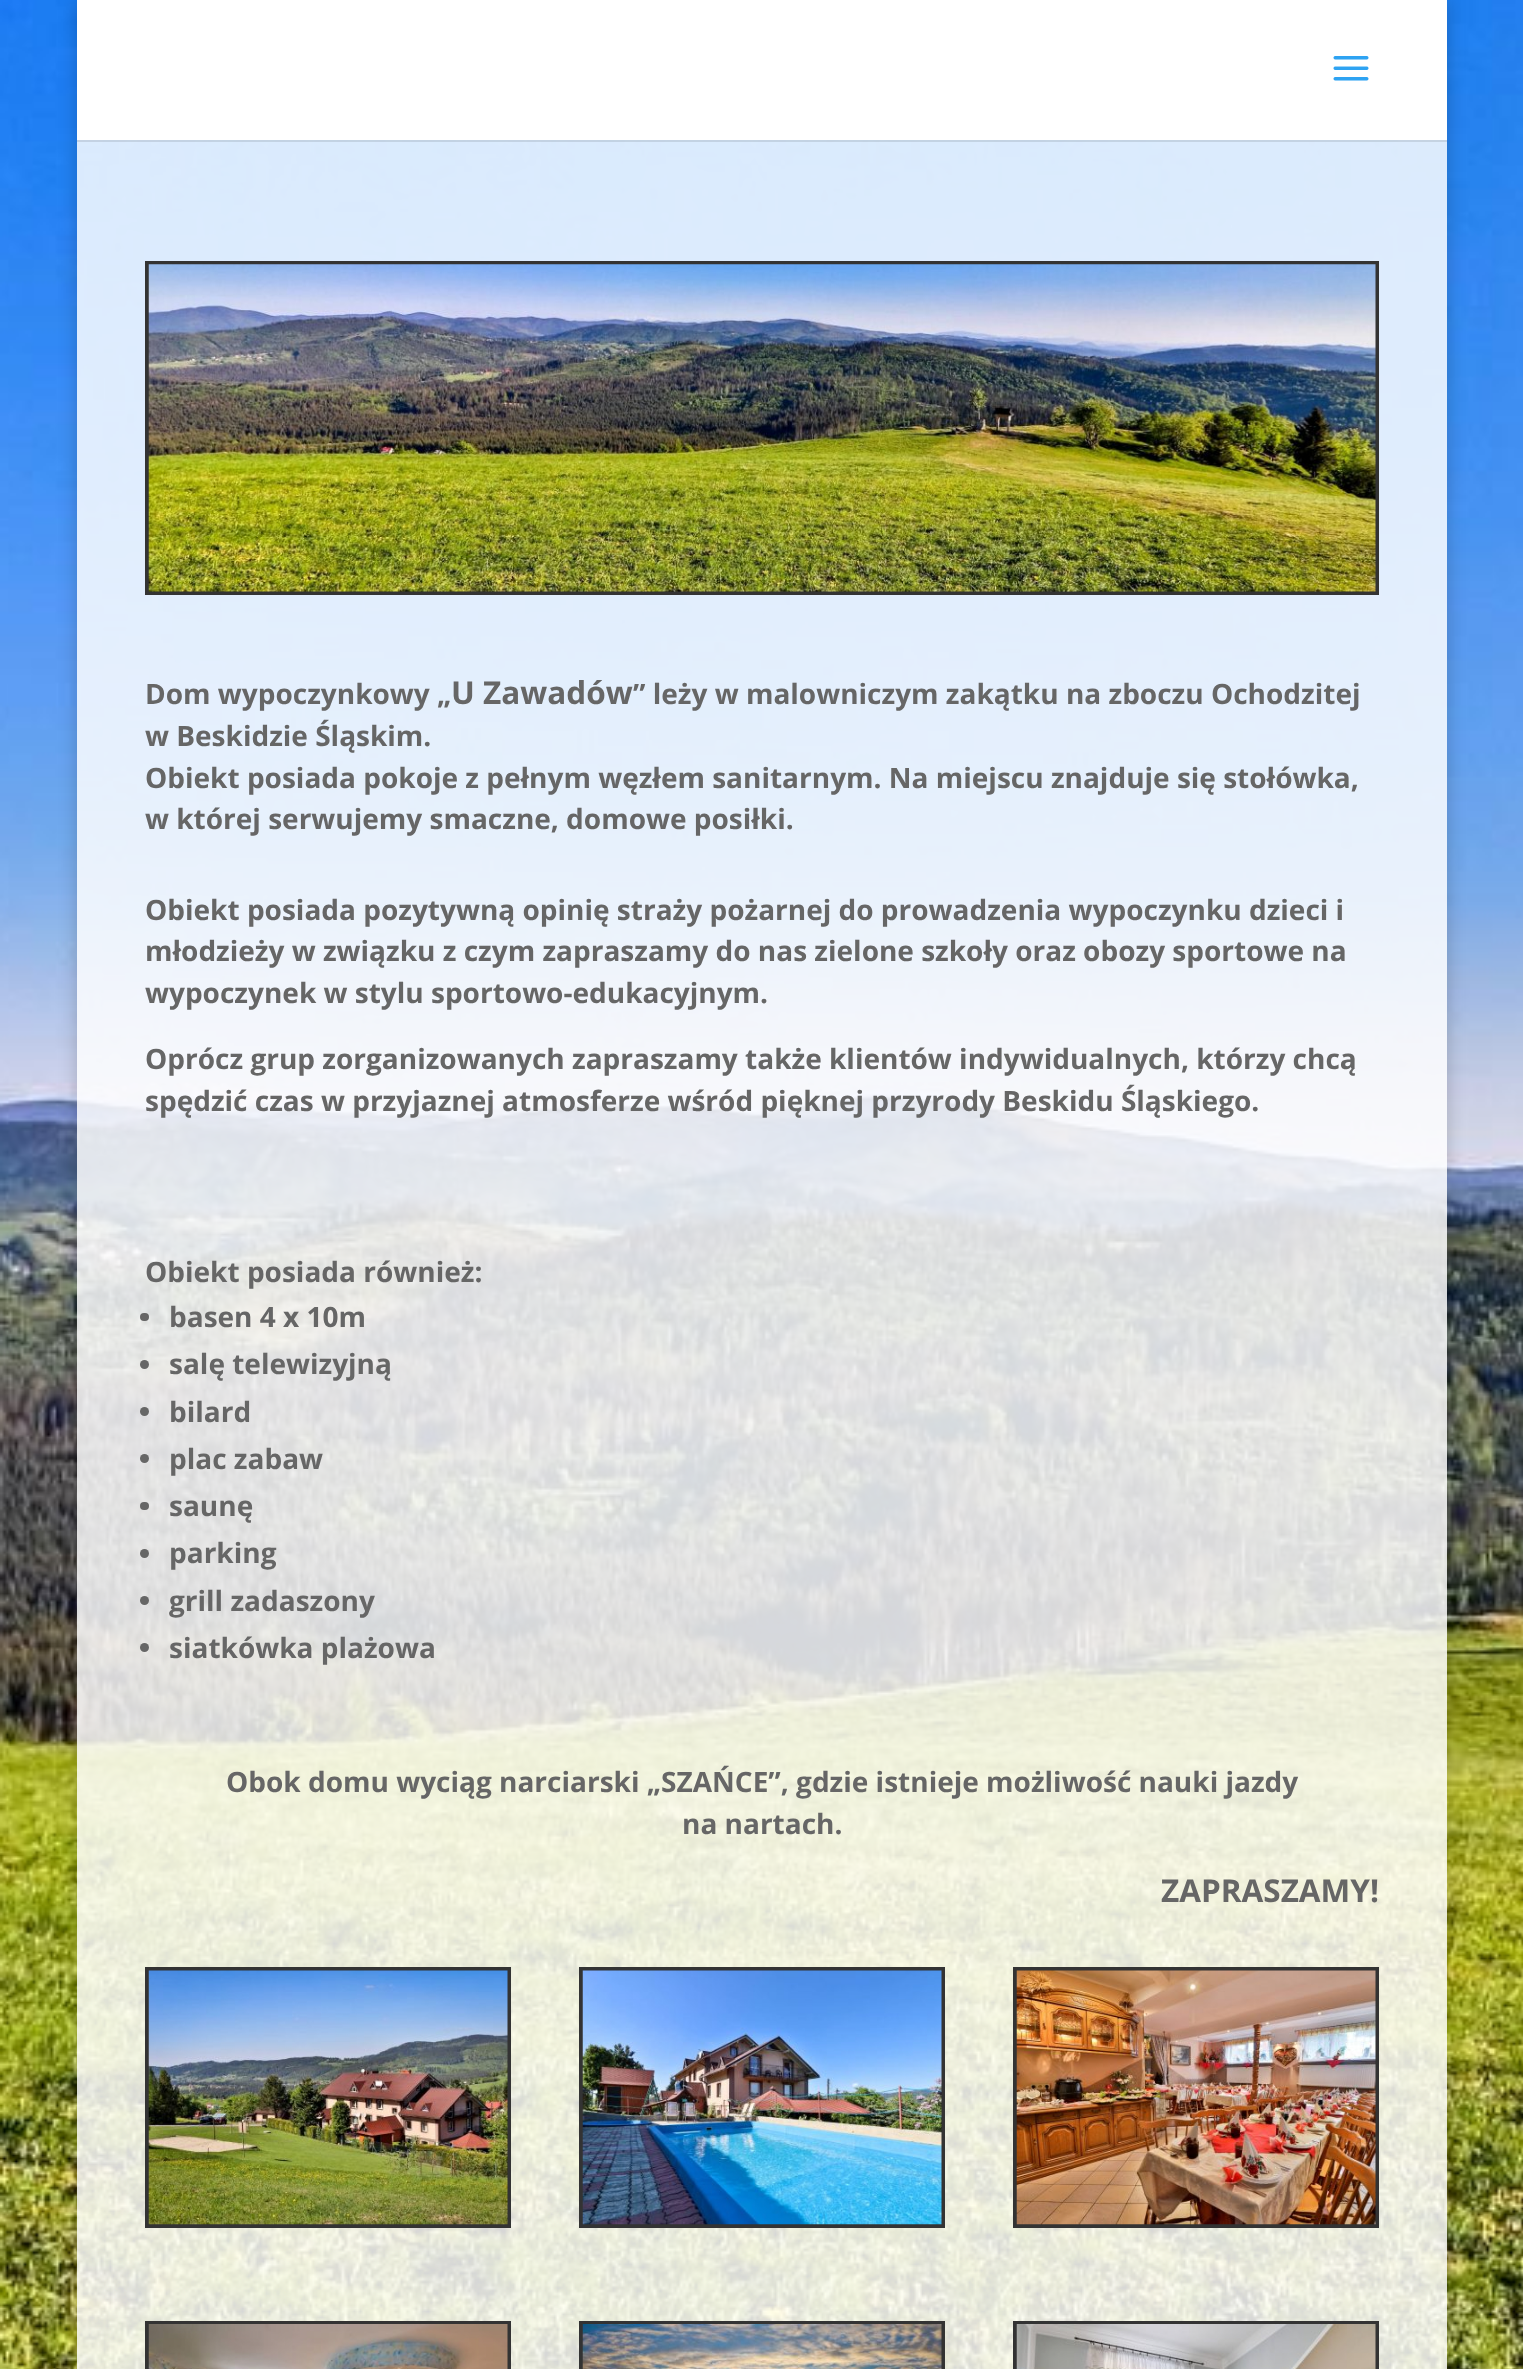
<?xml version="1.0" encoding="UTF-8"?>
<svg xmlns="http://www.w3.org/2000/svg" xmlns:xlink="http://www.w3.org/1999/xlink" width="1523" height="2369">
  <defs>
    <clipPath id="clip1"><path d="M 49 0 h 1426 v 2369 h -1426 z m 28 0 h 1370 v 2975 h -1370 z" clip-rule="evenodd" /></clipPath>
  </defs>
  <rect width="100%" height="100%" fill="#ffffff" />
  <image x="0" y="0" width="1523" height="2369" xlink:href="image1.png" />
  <g clip-path="url(#clip1)">
    <rect x="77" width="1370" height="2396" fill="#000000" fill-opacity="0.2" filter="blur(9px)" />
  </g>
  <rect x="77" y="140" width="1370" height="2229" fill="#ffffff" fill-opacity="0.84" />
  <rect x="77" y="140" width="1370" height="2" fill="#000000" fill-opacity="0.1" />
  <rect x="77" width="1370" height="140" fill="#ffffff" />
  <image x="1333" y="56" width="36" height="25" xlink:href="image2.png" />
  <rect x="147" y="263" width="1230" height="330" fill="none" stroke="#333333" stroke-width="4" />
  <image x="148" y="264" width="1228" height="328" xlink:href="image3.png" />
  <rect x="140" y="1313" width="9" height="8" rx="4" fill="#666666" />
  <circle cx="144.5" cy="1364.5" r="4.5" fill="#666666" />
  <circle cx="144.5" cy="1411.5" r="4.5" fill="#666666" />
  <circle cx="144.5" cy="1458.5" r="4.5" fill="#666666" />
  <rect x="140" y="1502" width="9" height="8" rx="4" fill="#666666" />
  <circle cx="144.5" cy="1553.5" r="4.5" fill="#666666" />
  <circle cx="144.5" cy="1600.5" r="4.5" fill="#666666" />
  <circle cx="144.5" cy="1647.5" r="4.5" fill="#666666" />
  <rect x="147" y="1969" width="362" height="257" fill="none" stroke="#333333" stroke-width="4" />
  <image x="148" y="1970" width="360" height="255" xlink:href="image4.png" />
  <rect x="581" y="1969" width="362" height="257" fill="none" stroke="#333333" stroke-width="4" />
  <image x="582" y="1970" width="360" height="255" xlink:href="image5.png" />
  <rect x="1015" y="1969" width="362" height="257" fill="none" stroke="#333333" stroke-width="4" />
  <image x="1016" y="1970" width="360" height="255" xlink:href="image6.png" />
  <rect x="147" y="2323" width="362" height="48" fill="none" stroke="#333333" stroke-width="4" />
  <image x="148" y="2324" width="360" height="45" xlink:href="image7.png" />
  <rect x="581" y="2323" width="362" height="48" fill="none" stroke="#333333" stroke-width="4" />
  <image x="582" y="2324" width="360" height="45" xlink:href="image8.png" />
  <rect x="1015" y="2323" width="362" height="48" fill="none" stroke="#333333" stroke-width="4" />
  <image x="1016" y="2324" width="360" height="45" xlink:href="image9.png" />
  <text x="145" y="704" style="font-family: Open Sans; font-size: 28px; font-weight: bold; fill: #666666">Dom wypoczynkowy „</text>
  <text x="451" y="704" style="font-family: Open Sans; font-size: 31.5px; font-weight: bold; fill: #666666">U Zawadów</text>
  <text x="633" y="704" style="font-family: Open Sans; font-size: 28px; font-weight: bold; fill: #666666">” leży w malowniczym zakątku na zboczu Ochodzitej</text>
  <text x="145" y="746" style="font-family: Open Sans; font-size: 28px; font-weight: bold; fill: #666666">w Beskidzie Śląskim.</text>
  <text x="145" y="788" style="font-family: Open Sans; font-size: 28px; font-weight: bold; fill: #666666">Obiekt posiada pokoje z pełnym węzłem sanitarnym. Na miejscu znajduje się stołówka,</text>
  <text x="145" y="829" style="font-family: Open Sans; font-size: 28px; font-weight: bold; fill: #666666">w której serwujemy smaczne, domowe posiłki.</text>
  <text x="145" y="920" style="font-family: Open Sans; font-size: 28px; font-weight: bold; fill: #666666">Obiekt posiada pozytywną opinię straży pożarnej do prowadzenia wypoczynku dzieci i</text>
  <text x="145" y="961" style="font-family: Open Sans; font-size: 28px; font-weight: bold; fill: #666666">młodzieży w związku z czym zapraszamy do nas zielone szkoły oraz obozy sportowe na</text>
  <text x="145" y="1003" style="font-family: Open Sans; font-size: 28px; font-weight: bold; fill: #666666">wypoczynek w stylu sportowo-edukacyjnym.</text>
  <text x="145" y="1069" style="font-family: Open Sans; font-size: 28px; font-weight: bold; fill: #666666">Oprócz grup zorganizowanych zapraszamy także klientów indywidualnych, którzy chcą</text>
  <text x="145" y="1111" style="font-family: Open Sans; font-size: 28px; font-weight: bold; fill: #666666">spędzić czas w przyjaznej atmosferze wśród pięknej przyrody Beskidu Śląskiego.</text>
  <text x="145" y="1282" style="font-family: Open Sans; font-size: 28px; font-weight: bold; fill: #666666">Obiekt posiada również:</text>
  <text x="169" y="1327" style="font-family: Open Sans; font-size: 28px; font-weight: bold; fill: #666666">basen 4 x 10m</text>
  <text x="169" y="1374" style="font-family: Open Sans; font-size: 28px; font-weight: bold; fill: #666666">salę telewizyjną</text>
  <text x="169" y="1422" style="font-family: Open Sans; font-size: 28px; font-weight: bold; fill: #666666">bilard</text>
  <text x="169" y="1469" style="font-family: Open Sans; font-size: 28px; font-weight: bold; fill: #666666">plac zabaw</text>
  <text x="169" y="1516" style="font-family: Open Sans; font-size: 28px; font-weight: bold; fill: #666666">saunę</text>
  <text x="169" y="1563" style="font-family: Open Sans; font-size: 28px; font-weight: bold; fill: #666666">parking</text>
  <text x="169" y="1611" style="font-family: Open Sans; font-size: 28px; font-weight: bold; fill: #666666">grill zadaszony</text>
  <text x="169" y="1658" style="font-family: Open Sans; font-size: 28px; font-weight: bold; fill: #666666">siatkówka plażowa</text>
  <text x="226" y="1792" style="font-family: Open Sans; font-size: 28px; font-weight: bold; fill: #666666">Obok domu wyciąg narciarski „SZAŃCE”, gdzie istnieje możliwość nauki jazdy</text>
  <text x="682" y="1834" style="font-family: Open Sans; font-size: 28px; font-weight: bold; fill: #666666">na nartach.</text>
  <text x="1161" y="1902" style="font-family: Open Sans; font-size: 31.5px; font-weight: bold; fill: #666666">ZAPRASZAMY!</text>
</svg>
